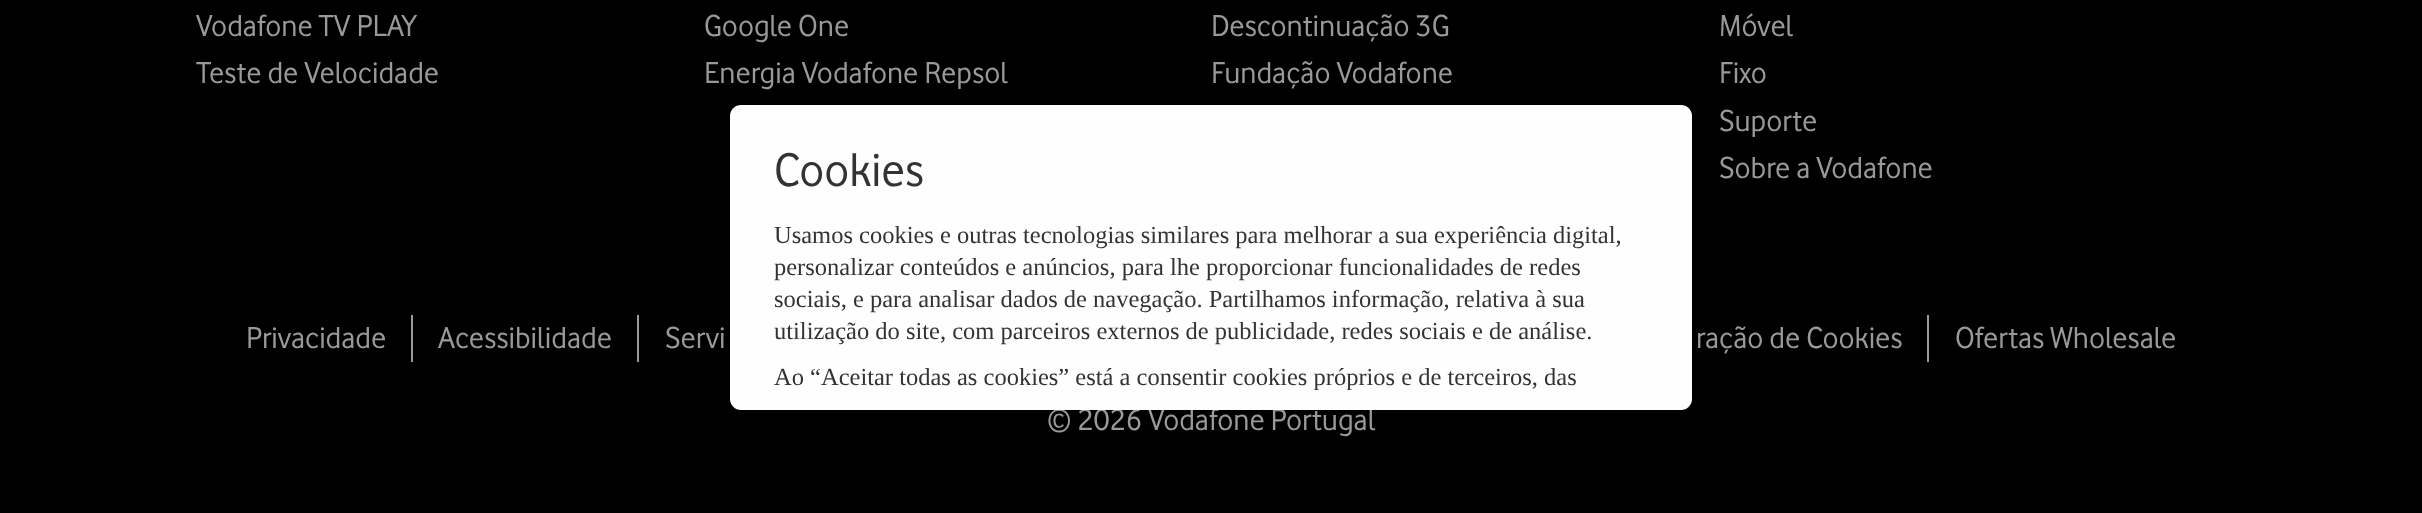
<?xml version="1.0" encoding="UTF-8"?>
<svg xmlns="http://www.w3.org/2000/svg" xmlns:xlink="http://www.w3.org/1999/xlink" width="2422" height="513">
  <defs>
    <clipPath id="clip1"><rect x="774" y="133" width="875" height="257" /></clipPath>
  </defs>
  <rect width="100%" height="100%" fill="#000000" />
  <rect x="411" y="315" width="2" height="47" fill="#999999" />
  <rect x="637" y="315" width="2" height="47" fill="#999999" />
  <rect x="1927" y="315" width="2" height="47" fill="#999999" />
  <text x="196" y="36" style="font-family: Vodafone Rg; font-size: 31.5px; fill: #999999">Vodafone TV PLAY</text>
  <text x="196" y="83" style="font-family: Vodafone Rg; font-size: 31.5px; fill: #999999">Teste de Velocidade</text>
  <text x="704" y="36" style="font-family: Vodafone Rg; font-size: 31.5px; fill: #999999">Google One</text>
  <text x="704" y="83" style="font-family: Vodafone Rg; font-size: 31.5px; fill: #999999">Energia Vodafone Repsol</text>
  <text x="1211" y="36" style="font-family: Vodafone Rg; font-size: 31.5px; fill: #999999">Descontinuação 3G</text>
  <text x="1211" y="83" style="font-family: Vodafone Rg; font-size: 31.5px; fill: #999999">Fundação Vodafone</text>
  <text x="1719" y="36" style="font-family: Vodafone Rg; font-size: 31.5px; fill: #999999">Móvel</text>
  <text x="1719" y="83" style="font-family: Vodafone Rg; font-size: 31.5px; fill: #999999">Fixo</text>
  <text x="1719" y="131" style="font-family: Vodafone Rg; font-size: 31.5px; fill: #999999">Suporte</text>
  <text x="1719" y="178" style="font-family: Vodafone Rg; font-size: 31.5px; fill: #999999">Sobre a Vodafone</text>
  <text x="246" y="348" style="font-family: Vodafone Rg; font-size: 31.5px; fill: #999999">Privacidade</text>
  <text x="438" y="348" style="font-family: Vodafone Rg; font-size: 31.5px; fill: #999999">Acessibilidade</text>
  <text x="665" y="348" style="font-family: Vodafone Rg; font-size: 31.5px; fill: #999999">Servi</text>
  <text x="1696" y="348" style="font-family: Vodafone Rg; font-size: 31.5px; fill: #999999">ração de Cookies</text>
  <text x="1955" y="348" style="font-family: Vodafone Rg; font-size: 31.5px; fill: #999999">Ofertas Wholesale</text>
  <text x="1047" y="430" style="font-family: Vodafone Rg; font-size: 31.5px; fill: #999999">© 2026 Vodafone Portugal</text>
  <rect x="730" y="105" width="962" height="305" rx="11" fill="#fefefe" />
  <text x="774" y="186" style="font-family: Vodafone Rg; font-size: 49px; fill: #333333">Cookies</text>
  <text x="774" y="243" style="font-family: Liberation Serif; font-size: 24.5px; fill: #333333">Usamos cookies e outras tecnologias similares para melhorar a sua experiência digital,</text>
  <text x="774" y="275" style="font-family: Liberation Serif; font-size: 24.5px; fill: #333333">personalizar conteúdos e anúncios, para lhe proporcionar funcionalidades de redes</text>
  <text x="774" y="307" style="font-family: Liberation Serif; font-size: 24.5px; fill: #333333">sociais, e para analisar dados de navegação. Partilhamos informação, relativa à sua</text>
  <text x="774" y="339" style="font-family: Liberation Serif; font-size: 24.5px; fill: #333333">utilização do site, com parceiros externos de publicidade, redes sociais e de análise.</text>
  <g clip-path="url(#clip1)">
    <text x="774" y="385" style="font-family: Liberation Serif; font-size: 24.5px; fill: #333333">Ao “Aceitar todas as cookies” está a consentir cookies próprios e de terceiros, das</text>
  </g>
</svg>
